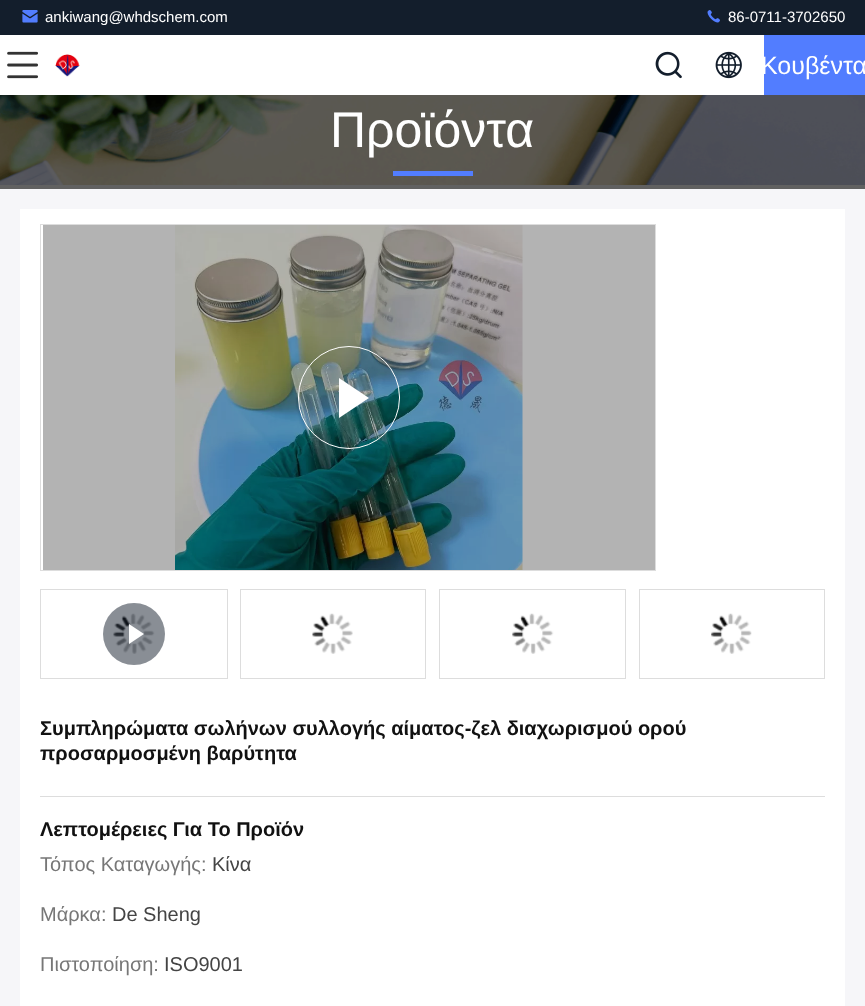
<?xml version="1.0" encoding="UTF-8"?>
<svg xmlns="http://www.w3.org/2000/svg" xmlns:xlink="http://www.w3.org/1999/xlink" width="865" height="1006">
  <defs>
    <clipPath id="clip1"><rect x="764" y="35" width="101" height="60" /></clipPath>
  </defs>
  <rect width="100%" height="100%" fill="#f6f6f9" />
  <rect width="865" height="35" fill="#131e2c" />
  <image x="22" y="10" width="16" height="13" xlink:href="image1.png" />
  <image x="707" y="10" width="13" height="13" xlink:href="image2.png" />
  <rect y="35" width="764" height="60" fill="#ffffff" />
  <image x="7" y="51" width="31" height="28" xlink:href="image3.png" />
  <image x="55" y="54" width="25" height="23" xlink:href="image4.png" />
  <image x="655" y="51" width="27" height="28" xlink:href="image5.png" />
  <image x="715" y="51" width="27" height="28" xlink:href="image6.png" />
  <rect x="764" y="35" width="101" height="60" fill="#527dff" />
  <rect y="185" width="865" height="4" fill="#616161" />
  <image x="0" y="95" width="865" height="90" xlink:href="image7.png" />
  <rect x="393" y="171" width="80" height="5" fill="#527dff" />
  <rect x="20" y="209" width="825" height="797" fill="#ffffff" />
  <rect x="43" y="225" width="612" height="345" fill="#b3b3b3" />
  <rect x="40.5" y="224.5" width="615" height="346" fill="none" stroke="#dddddd" />
  <image x="175" y="225" width="348" height="345" xlink:href="image8.png" />
  <rect x="298.5" y="346.5" width="101" height="102" rx="50.5" fill="none" stroke="#ffffff" />
  <path d="M 339 418 v -40 l 30 20 z" fill="#ffffff" />
  <rect x="40.5" y="589.5" width="187" height="89" fill="none" stroke="#dddddd" />
  <image x="113" y="613" width="42" height="41" xlink:href="image9.png" />
  <circle cx="134" cy="634" r="31" fill="#131e2c" fill-opacity="0.5" />
  <path d="M 129 644 v -20 l 15 10 z" fill="#ffffff" />
  <rect x="240.5" y="589.5" width="185" height="89" fill="none" stroke="#dddddd" />
  <image x="312" y="613" width="41" height="41" xlink:href="image10.png" />
  <rect x="439.5" y="589.5" width="186" height="89" fill="none" stroke="#dddddd" />
  <image x="512" y="613" width="42" height="41" xlink:href="image11.png" />
  <rect x="639.5" y="589.5" width="185" height="89" fill="none" stroke="#dddddd" />
  <image x="711" y="613" width="41" height="41" xlink:href="image12.png" />
  <rect x="40" y="796" width="785" height="1" fill="#dddddd" />
  <text x="45" y="22" style="font-family: Liberation Sans; font-size: 15px; fill: #ffffff">ankiwang@whdschem.com</text>
  <text x="728" y="22" style="font-family: Liberation Sans; font-size: 15px; fill: #ffffff">86-0711-3702650</text>
  <g clip-path="url(#clip1)">
    <text x="761" y="74" style="font-family: Liberation Sans; font-size: 25px; fill: #ffffff">Κουβέντα</text>
  </g>
  <text x="330" y="147" style="font-family: Liberation Sans; font-size: 50px; fill: #ffffff">Προϊόντα</text>
  <text x="40" y="735" style="font-family: Liberation Sans; font-size: 20px; font-weight: bold; fill: #111111">Συμπληρώματα σωλήνων συλλογής αίματος-ζελ διαχωρισμού ορού</text>
  <text x="40" y="760" style="font-family: Liberation Sans; font-size: 20px; font-weight: bold; fill: #111111">προσαρμοσμένη βαρύτητα</text>
  <text x="40" y="836" style="font-family: Liberation Sans; font-size: 20px; font-weight: bold; fill: #111111">Λεπτομέρειες Για Το Προϊόν</text>
  <text x="40" y="871" style="font-family: Liberation Sans; font-size: 20px; fill: #777777">Τόπος Καταγωγής:</text>
  <text x="212" y="871" style="font-family: Liberation Sans; font-size: 20px; fill: #444444">Κίνα</text>
  <text x="40" y="921" style="font-family: Liberation Sans; font-size: 20px; fill: #777777">Μάρκα:</text>
  <text x="112" y="921" style="font-family: Liberation Sans; font-size: 20px; fill: #444444">De Sheng</text>
  <text x="40" y="971" style="font-family: Liberation Sans; font-size: 20px; fill: #777777">Πιστοποίηση:</text>
  <text x="164" y="971" style="font-family: Liberation Sans; font-size: 20px; fill: #444444">ISO9001</text>
</svg>
